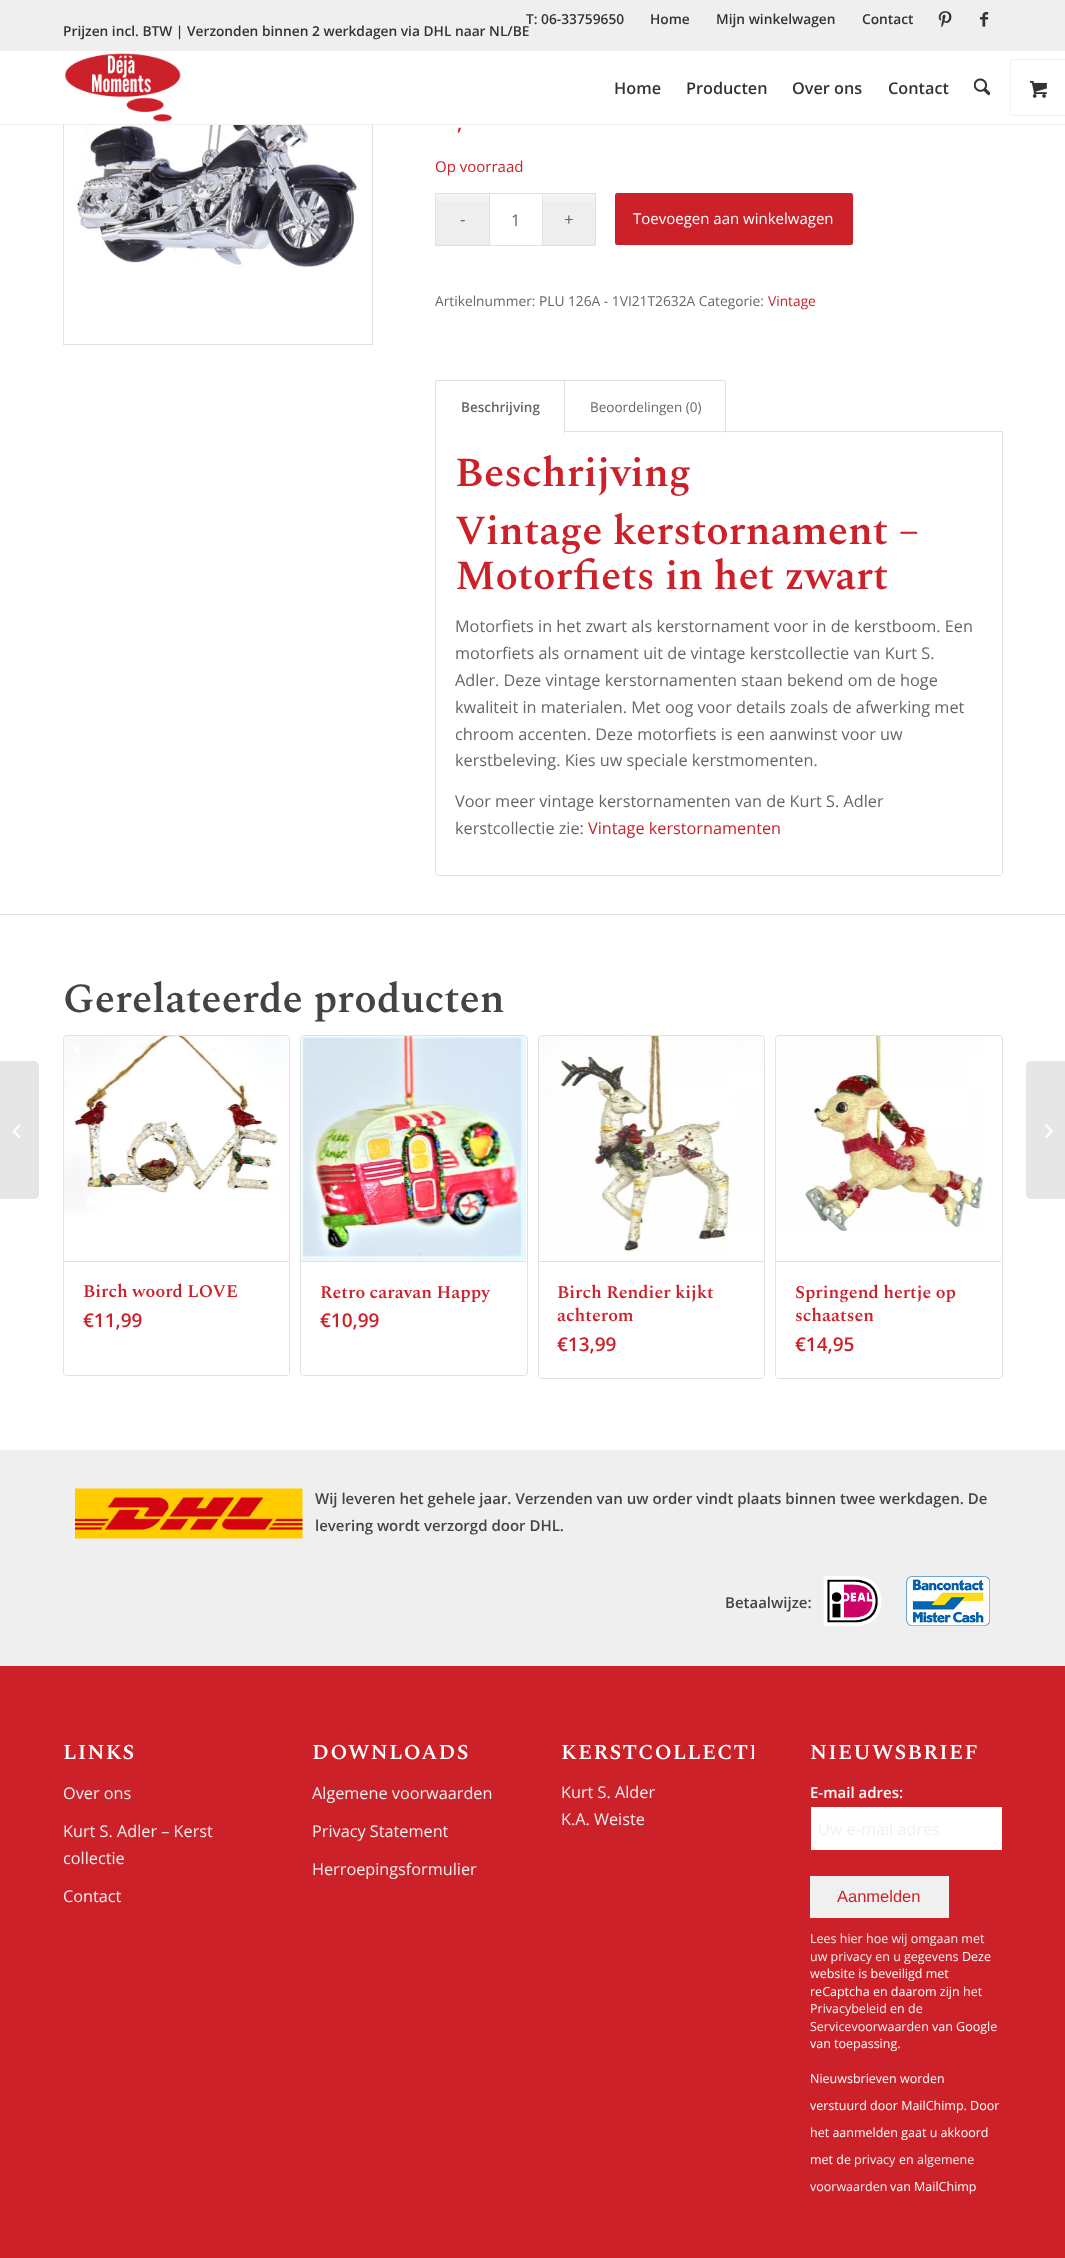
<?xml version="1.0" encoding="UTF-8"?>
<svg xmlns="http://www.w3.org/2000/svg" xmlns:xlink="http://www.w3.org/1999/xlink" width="1065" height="2258">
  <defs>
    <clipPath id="clip1"><rect x="561" y="1724" width="193" height="122" /></clipPath>
  </defs>
  <rect width="100%" height="100%" fill="#ffffff" />
  <rect x="63.5" y="35.5" width="309" height="309" fill="none" stroke="#e1e1e1" />
  <rect width="1065" height="51" fill="#efefef" />
  <image x="938" y="11" width="14" height="17" xlink:href="image1.png" />
  <image x="980" y="12" width="9" height="15" xlink:href="image2.png" />
  <rect x="63" y="51" width="310" height="73" fill="#ffffff" />
  <rect y="124" width="1065" height="1" fill="#efefef" />
  <image x="65" y="53" width="116" height="69" xlink:href="image3.png" />
  <image x="974" y="78" width="16" height="18" xlink:href="image4.png" />
  <rect x="1010.5" y="59.5" width="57" height="56" rx="2" fill="none" stroke="#efefef" />
  <rect x="1011" y="60" width="1" height="55" fill="#ffffff" />
  <image x="1030" y="80" width="17" height="18" xlink:href="image5.png" />
  <path d="M 0 1061 h 34 c 3 0 5 2 5 5 v 128 c 0 3 -2 5 -5 5 h -34 z" fill="#e6e6e6" />
  <image x="13" y="1124" width="7" height="14" xlink:href="image6.png" />
  <image x="73" y="125" width="292" height="158" xlink:href="image7.png" />
  <rect x="436" y="194" width="53" height="51" fill="#eeeeee" />
  <image x="436" y="194" width="53" height="8" xlink:href="image8.png" />
  <rect x="489.5" y="193.5" width="53" height="52" fill="none" stroke="#e1e1e1" />
  <rect x="543" y="194" width="52" height="51" fill="#eeeeee" />
  <image x="542" y="194" width="53" height="8" xlink:href="image9.png" />
  <rect x="435" y="193" width="54" height="1" fill="#e1e1e1" />
  <rect x="435" y="245" width="54" height="1" fill="#e1e1e1" />
  <rect x="435" y="193" width="1" height="53" fill="#e1e1e1" />
  <rect x="543" y="193" width="53" height="1" fill="#e1e1e1" />
  <rect x="595" y="193" width="1" height="53" fill="#e1e1e1" />
  <rect x="543" y="245" width="53" height="1" fill="#e1e1e1" />
  <rect x="615" y="193" width="238" height="52" rx="2.5" fill="#cc2129" />
  <path d="M 435.5 431.5 h 567 v 440.5 c 0 2 -1.5 3.5 -3.5 3.5 h -560 c -2 0 -3.5 -1.5 -3.5 -3.5 z" fill="none" stroke="#e1e1e1" />
  <rect x="435" y="431" width="129" height="2" fill="#ffffff" />
  <rect x="436" y="380" width="289" height="1" fill="#e1e1e1" />
  <rect x="564" y="380" width="1" height="53" fill="#e1e1e1" />
  <rect x="435" y="381" width="1" height="52" fill="#e1e1e1" />
  <rect x="725" y="381" width="1" height="52" fill="#e1e1e1" />
  <rect y="914" width="1065" height="1" fill="#e1e1e1" />
  <rect x="63.5" y="1035.5" width="226" height="340" rx="3.5" fill="none" stroke="#e1e1e1" />
  <image x="64" y="1036" width="224" height="177" xlink:href="image10.png" />
  <path d="M 64 1261 h 225 v 111.5 c 0 1.5 -1 2.5 -2.5 2.5 h -220 c -1.5 0 -2.5 -1 -2.5 -2.5 z" fill="#ffffff" />
  <rect x="64" y="1261" width="225" height="1" fill="#e1e1e1" />
  <rect x="300.5" y="1035.5" width="227" height="340" rx="3.5" fill="none" stroke="#e1e1e1" />
  <image x="301" y="1036" width="225" height="225" xlink:href="image11.png" />
  <path d="M 301 1261 h 225 v 111.5 c 0 1.5 -1 2.5 -2.5 2.5 h -220 c -1.5 0 -2.5 -1 -2.5 -2.5 z" fill="#ffffff" />
  <rect x="301" y="1261" width="225" height="1" fill="#e1e1e1" />
  <rect x="538.5" y="1035.5" width="226" height="343" rx="3.5" fill="none" stroke="#e1e1e1" />
  <image x="539" y="1036" width="224" height="216" xlink:href="image12.png" />
  <path d="M 539 1261 h 225 v 114.5 c 0 1.5 -1 2.5 -2.5 2.5 h -220 c -1.5 0 -2.5 -1 -2.5 -2.5 z" fill="#ffffff" />
  <rect x="539" y="1261" width="225" height="1" fill="#e1e1e1" />
  <rect x="775.5" y="1035.5" width="227" height="343" rx="3.5" fill="none" stroke="#e1e1e1" />
  <image x="777" y="1036" width="207" height="195" xlink:href="image13.png" />
  <path d="M 776 1261 h 225 v 114.5 c 0 1.5 -1 2.5 -2.5 2.5 h -220 c -1.5 0 -2.5 -1 -2.5 -2.5 z" fill="#ffffff" />
  <rect x="776" y="1261" width="225" height="1" fill="#e1e1e1" />
  <rect y="1450" width="1065" height="216" fill="#efefef" />
  <image x="75" y="1488" width="228" height="51" xlink:href="image14.png" />
  <image x="823" y="1576" width="59" height="50" xlink:href="image15.png" />
  <image x="906" y="1576" width="84" height="50" xlink:href="image16.png" />
  <rect y="1666" width="1065" height="592" fill="#cc2129" />
  <rect x="811" y="1807" width="191" height="43" fill="#ffffff" />
  <rect x="810" y="1876" width="139" height="42" fill="#f0f0f0" />
  <path d="M 1031 1061 h 34 v 138 h -34 c -3 0 -5 -2 -5 -5 v -128 c 0 -3 2 -5 5 -5 z" fill="#e6e6e6" />
  <image x="1045" y="1124" width="8" height="14" xlink:href="image17.png" />
  <text x="526" y="24" style="font-family: Open Sans; font-size: 13.75px; font-weight: 600; fill: #333333">T: 06-33759650</text>
  <text x="650" y="24" style="font-family: Open Sans; font-size: 13.75px; font-weight: 600; fill: #333333">Home</text>
  <text x="716" y="24" style="font-family: Open Sans; font-size: 13.75px; font-weight: 600; fill: #333333">Mijn winkelwagen</text>
  <text x="862" y="24" style="font-family: Open Sans; font-size: 13.75px; font-weight: 600; fill: #333333">Contact</text>
  <text x="63" y="36" style="font-family: Open Sans; font-size: 13.75px; font-weight: 600; fill: #333333">Prijzen incl. BTW | Verzonden binnen 2 werkdagen via DHL naar NL/BE</text>
  <text x="614" y="94" style="font-family: Open Sans; font-size: 16.25px; font-weight: 600; fill: #333333">Home</text>
  <text x="686" y="94" style="font-family: Open Sans; font-size: 16.25px; font-weight: 600; fill: #333333">Producten</text>
  <text x="792" y="94" style="font-family: Open Sans; font-size: 16.25px; font-weight: 600; fill: #333333">Over ons</text>
  <text x="888" y="94" style="font-family: Open Sans; font-size: 16.25px; font-weight: 600; fill: #333333">Contact</text>
  <text x="457" y="130" style="font-family: Open Sans; font-size: 19px; font-weight: 600; fill: #cc2129">,</text>
  <text x="435" y="172" style="font-family: Open Sans; font-size: 15px; fill: #cc2129">Op voorraad</text>
  <text x="460" y="225" style="font-family: Liberation Sans; font-size: 16.5px; fill: #666666">-</text>
  <text x="511" y="226" style="font-family: Open Sans; font-size: 16.25px; fill: #666666">1</text>
  <text x="564" y="225" style="font-family: Liberation Sans; font-size: 16.5px; fill: #666666">+</text>
  <text x="633" y="224" style="font-family: Open Sans; font-size: 15px; fill: #ffffff">Toevoegen aan winkelwagen</text>
  <text x="435" y="306" style="font-family: Open Sans; font-size: 13.75px; fill: #666666">Artikelnummer: PLU 126A - 1VI21T2632A Categorie:</text>
  <text x="768" y="306" style="font-family: Open Sans; font-size: 13.75px; fill: #cc2129">Vintage</text>
  <text x="461" y="412" style="font-family: Open Sans; font-size: 13.5px; font-weight: 600; fill: #666666">Beschrijving</text>
  <text x="590" y="412" style="font-family: Open Sans; font-size: 13.5px; fill: #666666">Beoordelingen (0)</text>
  <text x="455" y="486" style="font-family: Spectral; font-size: 41.25px; font-weight: 600; fill: #cc2129">Beschrijving</text>
  <text x="455" y="544" style="font-family: Spectral; font-size: 41.25px; font-weight: 600; fill: #cc2129">Vintage kerstornament –</text>
  <text x="455" y="589" style="font-family: Spectral; font-size: 41.25px; font-weight: 600; fill: #cc2129">Motorfiets in het zwart</text>
  <text x="455" y="632" style="font-family: Open Sans; font-size: 16.25px; fill: #666666">Motorfiets in het zwart als kerstornament voor in de kerstboom. Een</text>
  <text x="455" y="659" style="font-family: Open Sans; font-size: 16.25px; fill: #666666">motorfiets als ornament uit de vintage kerstcollectie van Kurt S.</text>
  <text x="455" y="686" style="font-family: Open Sans; font-size: 16.25px; fill: #666666">Adler. Deze vintage kerstornamenten staan bekend om de hoge</text>
  <text x="455" y="713" style="font-family: Open Sans; font-size: 16.25px; fill: #666666">kwaliteit in materialen. Met oog voor details zoals de afwerking met</text>
  <text x="455" y="740" style="font-family: Open Sans; font-size: 16.25px; fill: #666666">chroom accenten. Deze motorfiets is een aanwinst voor uw</text>
  <text x="455" y="766" style="font-family: Open Sans; font-size: 16.25px; fill: #666666">kerstbeleving. Kies uw speciale kerstmomenten.</text>
  <text x="455" y="807" style="font-family: Open Sans; font-size: 16.25px; fill: #666666">Voor meer vintage kerstornamenten van de Kurt S. Adler</text>
  <text x="455" y="834" style="font-family: Open Sans; font-size: 16.25px; fill: #666666">kerstcollectie zie:</text>
  <text x="588" y="834" style="font-family: Open Sans; font-size: 16.25px; fill: #cc2129">Vintage kerstornamenten</text>
  <text x="63" y="1012" style="font-family: Spectral; font-size: 41.25px; font-weight: 600; fill: #444444">Gerelateerde producten</text>
  <text x="83" y="1297" style="font-family: Spectral; font-size: 17.9px; font-weight: 600; fill: #cc2129">Birch woord LOVE</text>
  <text x="83" y="1327" style="font-family: Open Sans; font-size: 19px; font-weight: 600; fill: #cc2129">€11,99</text>
  <text x="320" y="1298" style="font-family: Spectral; font-size: 17.9px; font-weight: 600; fill: #cc2129">Retro caravan Happy</text>
  <text x="320" y="1327" style="font-family: Open Sans; font-size: 19px; font-weight: 600; fill: #cc2129">€10,99</text>
  <text x="557" y="1298" style="font-family: Spectral; font-size: 17.9px; font-weight: 600; fill: #cc2129">Birch Rendier kijkt</text>
  <text x="557" y="1321" style="font-family: Spectral; font-size: 17.9px; font-weight: 600; fill: #cc2129">achterom</text>
  <text x="557" y="1351" style="font-family: Open Sans; font-size: 19px; font-weight: 600; fill: #cc2129">€13,99</text>
  <text x="795" y="1298" style="font-family: Spectral; font-size: 17.9px; font-weight: 600; fill: #cc2129">Springend hertje op</text>
  <text x="795" y="1321" style="font-family: Spectral; font-size: 17.9px; font-weight: 600; fill: #cc2129">schaatsen</text>
  <text x="795" y="1351" style="font-family: Open Sans; font-size: 19px; font-weight: 600; fill: #cc2129">€14,95</text>
  <text x="315" y="1504" style="font-family: Open Sans; font-size: 15px; font-weight: 600; fill: #444444">Wij leveren het gehele jaar. Verzenden van uw order vindt plaats binnen twee werkdagen. De</text>
  <text x="315" y="1531" style="font-family: Open Sans; font-size: 15px; font-weight: 600; fill: #444444">levering wordt verzorgd door DHL.</text>
  <text x="725" y="1608" style="font-family: Open Sans; font-size: 15px; font-weight: 600; fill: #444444">Betaalwijze:</text>
  <text x="63" y="1759" style="font-family: Spectral; font-size: 21.1px; font-weight: 600; letter-spacing: 1.25px; fill: #ffffff">LINKS</text>
  <text x="63" y="1799" style="font-family: Open Sans; font-size: 16.25px; fill: #f0f0f0">Over ons</text>
  <text x="63" y="1837" style="font-family: Open Sans; font-size: 16.25px; fill: #f0f0f0">Kurt S. Adler – Kerst</text>
  <text x="63" y="1864" style="font-family: Open Sans; font-size: 16.25px; fill: #f0f0f0">collectie</text>
  <text x="63" y="1902" style="font-family: Open Sans; font-size: 16.25px; fill: #f0f0f0">Contact</text>
  <text x="312" y="1759" style="font-family: Spectral; font-size: 21.1px; font-weight: 600; letter-spacing: 1.25px; fill: #ffffff">DOWNLOADS</text>
  <text x="312" y="1799" style="font-family: Open Sans; font-size: 16.25px; fill: #f0f0f0">Algemene voorwaarden</text>
  <text x="312" y="1837" style="font-family: Open Sans; font-size: 16.25px; fill: #f0f0f0">Privacy Statement</text>
  <text x="312" y="1875" style="font-family: Open Sans; font-size: 16.25px; fill: #f0f0f0">Herroepingsformulier</text>
  <g clip-path="url(#clip1)">
    <text x="561" y="1759" style="font-family: Spectral; font-size: 21.1px; font-weight: 600; letter-spacing: 1.25px; fill: #ffffff">KERSTCOLLECTI</text>
  </g>
  <text x="561" y="1798" style="font-family: Open Sans; font-size: 16.25px; fill: #f0f0f0">Kurt S. Alder</text>
  <text x="561" y="1825" style="font-family: Open Sans; font-size: 16.25px; fill: #f0f0f0">K.A. Weiste</text>
  <text x="810" y="1759" style="font-family: Spectral; font-size: 21.1px; font-weight: 600; letter-spacing: 1.25px; fill: #ffffff">NIEUWSBRIEF</text>
  <text x="810" y="1798" style="font-family: Open Sans; font-size: 15px; font-weight: 600; fill: #ffffff">E-mail adres:</text>
  <text x="818" y="1835" style="font-family: Open Sans; font-size: 16.25px; fill: #f0f0f0">Uw e-mail adres</text>
  <text x="837" y="1902" style="font-family: Liberation Sans; font-size: 16.5px; fill: #cc2129">Aanmelden</text>
  <text x="810" y="1943" style="font-family: Open Sans; font-size: 12.5px; fill: #f0f0f0">Lees hier hoe wij omgaan met</text>
  <text x="810" y="1961" style="font-family: Open Sans; font-size: 12.5px; fill: #f0f0f0">uw privacy en u gegevens</text>
  <text x="962" y="1961" style="font-family: Open Sans; font-size: 12.5px; fill: #ffffff">Deze</text>
  <text x="810" y="1978" style="font-family: Open Sans; font-size: 12.5px; fill: #ffffff">website is beveiligd met</text>
  <text x="810" y="1996" style="font-family: Open Sans; font-size: 12.5px; fill: #ffffff">reCaptcha en daarom zijn</text>
  <text x="963" y="1996" style="font-family: Open Sans; font-size: 12.5px; fill: #f0f0f0">het</text>
  <text x="810" y="2013" style="font-family: Open Sans; font-size: 12.5px; fill: #f0f0f0">Privacybeleid</text>
  <text x="890" y="2013" style="font-family: Open Sans; font-size: 12.5px; fill: #ffffff">en</text>
  <text x="908" y="2013" style="font-family: Open Sans; font-size: 12.5px; fill: #f0f0f0">de</text>
  <text x="810" y="2031" style="font-family: Open Sans; font-size: 12.5px; fill: #f0f0f0">Servicevoorwaarden</text>
  <text x="932" y="2031" style="font-family: Open Sans; font-size: 12.5px; fill: #ffffff">van Google</text>
  <text x="810" y="2048" style="font-family: Open Sans; font-size: 12.5px; fill: #ffffff">van toepassing.</text>
  <text x="810" y="2083" style="font-family: Open Sans; font-size: 12.5px; fill: #ffffff">Nieuwsbrieven worden</text>
  <text x="810" y="2110" style="font-family: Open Sans; font-size: 12.5px; fill: #ffffff">verstuurd door MailChimp. Door</text>
  <text x="810" y="2137" style="font-family: Open Sans; font-size: 12.5px; fill: #ffffff">het aanmelden gaat u akkoord</text>
  <text x="810" y="2164" style="font-family: Open Sans; font-size: 12.5px; fill: #ffffff">met de</text>
  <text x="854" y="2164" style="font-family: Open Sans; font-size: 12.5px; fill: #f0f0f0">privacy</text>
  <text x="899" y="2164" style="font-family: Open Sans; font-size: 12.5px; fill: #ffffff">en</text>
  <text x="917" y="2164" style="font-family: Open Sans; font-size: 12.5px; fill: #f0f0f0">algemene</text>
  <text x="810" y="2191" style="font-family: Open Sans; font-size: 12.5px; fill: #f0f0f0">voorwaarden</text>
  <text x="890" y="2191" style="font-family: Open Sans; font-size: 12.5px; fill: #ffffff">van MailChimp</text>
</svg>
